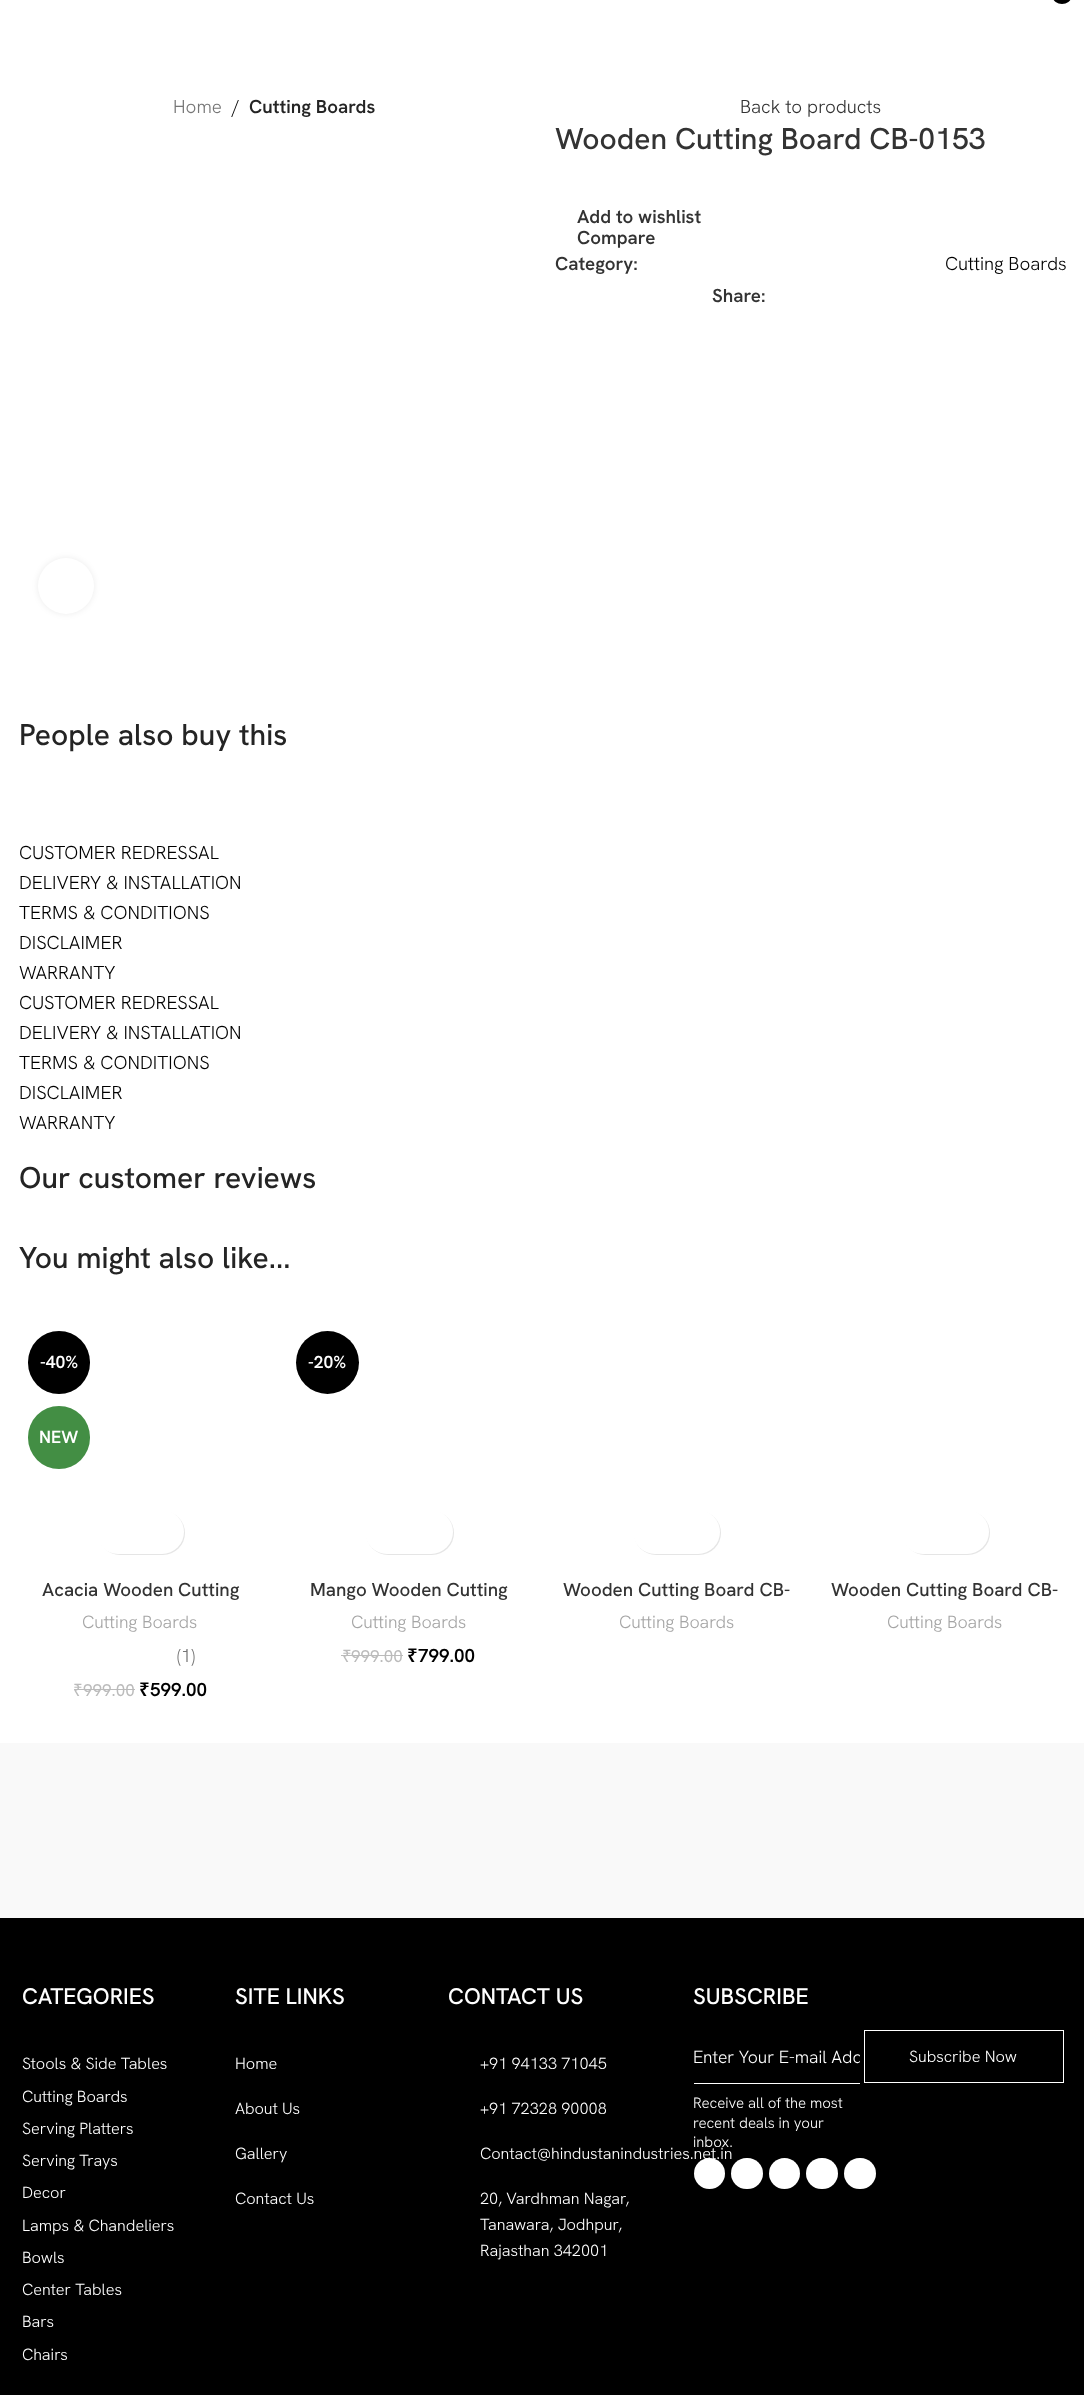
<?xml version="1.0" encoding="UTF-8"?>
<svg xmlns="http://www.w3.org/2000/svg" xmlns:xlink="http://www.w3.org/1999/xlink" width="1084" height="2395">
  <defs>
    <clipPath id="clip1"><rect x="694" y="2045" width="166" height="23" /></clipPath>
  </defs>
  <rect width="100%" height="100%" fill="#ffffff" />
  <rect x="1053" y="-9" width="18" height="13" rx="9" fill="#000000" />
  <rect x="38" y="558" width="56" height="56" rx="28" fill="#000000" fill-opacity="0.08" filter="blur(3px)" />
  <circle cx="66" cy="586" r="28" fill="#ffffff" />
  <rect x="28" y="1331" width="62" height="63" rx="31" fill="#000000" />
  <rect x="28" y="1406" width="62" height="63" rx="31" fill="#438e44" />
  <rect x="98" y="1511" width="87" height="44" rx="22" fill="#000000" fill-opacity="0.1" filter="blur(0.5px)" />
  <rect x="96" y="1510" width="88" height="44" rx="22" fill="#ffffff" />
  <rect x="74" y="1689" width="10" height="1" fill="#bbbbbb" />
  <rect x="84" y="1689" width="51" height="1" fill="#bbbbbb" />
  <circle cx="327.5" cy="1362.5" r="31.5" fill="#000000" />
  <rect x="366" y="1511" width="88" height="44" rx="22" fill="#000000" fill-opacity="0.1" filter="blur(0.5px)" />
  <rect x="365" y="1510" width="88" height="44" rx="22" fill="#ffffff" />
  <rect x="341" y="1655" width="10" height="1" fill="#bbbbbb" />
  <rect x="351" y="1655" width="52" height="1" fill="#bbbbbb" />
  <rect x="634" y="1511" width="87" height="44" rx="22" fill="#000000" fill-opacity="0.1" filter="blur(0.5px)" />
  <rect x="633" y="1510" width="87" height="44" rx="22" fill="#ffffff" />
  <rect x="903" y="1511" width="87" height="44" rx="22" fill="#000000" fill-opacity="0.1" filter="blur(0.5px)" />
  <rect x="901" y="1510" width="88" height="44" rx="22" fill="#ffffff" />
  <rect y="1743" width="1084" height="175" fill="#f9f9f9" />
  <rect y="1918" width="1084" height="477" fill="#000000" />
  <rect x="694" y="2083" width="166" height="1" fill="#ffffff" />
  <rect x="864.5" y="2030.5" width="199" height="52" fill="none" stroke="#ffffff" />
  <circle cx="709.5" cy="2173.5" r="15.5" fill="#ffffff" />
  <rect x="731" y="2158" width="32" height="31" rx="15.5" fill="#ffffff" />
  <circle cx="784.5" cy="2173.5" r="15.5" fill="#ffffff" />
  <rect x="806" y="2158" width="32" height="31" rx="15.5" fill="#ffffff" />
  <rect x="844" y="2158" width="32" height="31" rx="15.5" fill="#ffffff" />
  <text x="173" y="113" style="font-family: Hanken Grotesk; font-size: 18.75px; font-weight: 300; fill: #767676">Home</text>
  <text x="232" y="113" style="font-family: Hanken Grotesk; font-size: 18.75px; font-weight: 300; fill: #000000">/</text>
  <text x="249" y="113" style="font-family: Hanken Grotesk; font-size: 18.75px; font-weight: 600; fill: #242424">Cutting Boards</text>
  <text x="740" y="113" style="font-family: Hanken Grotesk; font-size: 18.75px; font-weight: 300; fill: #333333">Back to products</text>
  <text x="555" y="149" style="font-family: Hanken Grotesk; font-size: 30px; font-weight: 500; fill: #333333">Wooden Cutting Board CB-0153</text>
  <text x="577" y="223" style="font-family: Hanken Grotesk; font-size: 18.75px; font-weight: 600; fill: #333333">Add to wishlist</text>
  <text x="577" y="244" style="font-family: Hanken Grotesk; font-size: 18.75px; font-weight: 600; fill: #333333">Compare</text>
  <text x="555" y="270" style="font-family: Hanken Grotesk; font-size: 18.75px; font-weight: 600; fill: #333333">Category:</text>
  <text x="945" y="270" style="font-family: Hanken Grotesk; font-size: 18.75px; font-weight: 300; fill: #000000">Cutting Boards</text>
  <text x="712" y="302" style="font-family: Hanken Grotesk; font-size: 18.75px; font-weight: 600; fill: #333333">Share:</text>
  <text x="19" y="745" style="font-family: Hanken Grotesk; font-size: 30px; font-weight: 500; fill: #242424">People also buy this</text>
  <text x="19" y="859" style="font-family: Hanken Grotesk; font-size: 18.75px; font-weight: 300; fill: #000000">CUSTOMER REDRESSAL</text>
  <text x="19" y="889" style="font-family: Hanken Grotesk; font-size: 18.75px; font-weight: 300; fill: #000000">DELIVERY &amp; INSTALLATION</text>
  <text x="19" y="919" style="font-family: Hanken Grotesk; font-size: 18.75px; font-weight: 300; fill: #000000">TERMS &amp; CONDITIONS</text>
  <text x="19" y="949" style="font-family: Hanken Grotesk; font-size: 18.75px; font-weight: 300; fill: #000000">DISCLAIMER</text>
  <text x="19" y="979" style="font-family: Hanken Grotesk; font-size: 18.75px; font-weight: 300; fill: #000000">WARRANTY</text>
  <text x="19" y="1009" style="font-family: Hanken Grotesk; font-size: 18.75px; font-weight: 300; fill: #000000">CUSTOMER REDRESSAL</text>
  <text x="19" y="1039" style="font-family: Hanken Grotesk; font-size: 18.75px; font-weight: 300; fill: #000000">DELIVERY &amp; INSTALLATION</text>
  <text x="19" y="1069" style="font-family: Hanken Grotesk; font-size: 18.75px; font-weight: 300; fill: #000000">TERMS &amp; CONDITIONS</text>
  <text x="19" y="1099" style="font-family: Hanken Grotesk; font-size: 18.75px; font-weight: 300; fill: #000000">DISCLAIMER</text>
  <text x="19" y="1129" style="font-family: Hanken Grotesk; font-size: 18.75px; font-weight: 300; fill: #000000">WARRANTY</text>
  <text x="19" y="1188" style="font-family: Hanken Grotesk; font-size: 30px; font-weight: 500; fill: #242424">Our customer reviews</text>
  <text x="19" y="1268" style="font-family: Hanken Grotesk; font-size: 30px; font-weight: 500; fill: #242424">You might also like...</text>
  <text x="40" y="1368" style="font-family: Hanken Grotesk; font-size: 17.5px; font-weight: 600; fill: #ffffff">-40%</text>
  <text x="39" y="1443" style="font-family: Hanken Grotesk; font-size: 17.5px; font-weight: 600; fill: #ffffff">NEW</text>
  <text x="42" y="1596" style="font-family: Hanken Grotesk; font-size: 18.75px; font-weight: 500; fill: #333333">Acacia Wooden Cutting</text>
  <text x="82" y="1628" style="font-family: Hanken Grotesk; font-size: 17.75px; font-weight: 300; fill: #a5a5a5">Cutting Boards</text>
  <text x="177" y="1662" style="font-family: Hanken Grotesk; font-size: 18.75px; font-weight: 300; fill: #767676">(1)</text>
  <text x="73" y="1696" style="font-family: Noto Sans; font-size: 17px; fill: #bbbbbb">₹</text>
  <text x="83" y="1696" style="font-family: Hanken Grotesk; font-size: 17px; fill: #bbbbbb">999.00</text>
  <text x="139" y="1696" style="font-family: Noto Sans; font-size: 18.75px; font-weight: 600; fill: #000000">₹</text>
  <text x="150" y="1696" style="font-family: Hanken Grotesk; font-size: 18.75px; font-weight: 600; fill: #000000">599.00</text>
  <text x="308" y="1368" style="font-family: Hanken Grotesk; font-size: 17.5px; font-weight: 600; fill: #ffffff">-20%</text>
  <text x="310" y="1596" style="font-family: Hanken Grotesk; font-size: 18.75px; font-weight: 500; fill: #333333">Mango Wooden Cutting</text>
  <text x="351" y="1628" style="font-family: Hanken Grotesk; font-size: 17.75px; font-weight: 300; fill: #a5a5a5">Cutting Boards</text>
  <text x="342" y="1662" style="font-family: Noto Sans; font-size: 17px; fill: #bbbbbb">₹</text>
  <text x="351" y="1662" style="font-family: Hanken Grotesk; font-size: 17px; fill: #bbbbbb">999.00</text>
  <text x="407" y="1662" style="font-family: Noto Sans; font-size: 18.75px; font-weight: 600; fill: #000000">₹</text>
  <text x="418" y="1662" style="font-family: Hanken Grotesk; font-size: 18.75px; font-weight: 600; fill: #000000">799.00</text>
  <text x="563" y="1596" style="font-family: Hanken Grotesk; font-size: 18.75px; font-weight: 500; fill: #333333">Wooden Cutting Board CB-</text>
  <text x="619" y="1628" style="font-family: Hanken Grotesk; font-size: 17.75px; font-weight: 300; fill: #a5a5a5">Cutting Boards</text>
  <text x="831" y="1596" style="font-family: Hanken Grotesk; font-size: 18.75px; font-weight: 500; fill: #333333">Wooden Cutting Board CB-</text>
  <text x="887" y="1628" style="font-family: Hanken Grotesk; font-size: 17.75px; font-weight: 300; fill: #a5a5a5">Cutting Boards</text>
  <text x="22" y="2004" style="font-family: Hanken Grotesk; font-size: 22.5px; font-weight: 500; fill: #ffffff">CATEGORIES</text>
  <text x="22" y="2069" style="font-family: Hanken Grotesk; font-size: 16.25px; font-weight: 300; fill: #ffffff">Stools &amp; Side Tables</text>
  <text x="22" y="2102" style="font-family: Hanken Grotesk; font-size: 16.25px; font-weight: 300; fill: #ffffff">Cutting Boards</text>
  <text x="22" y="2134" style="font-family: Hanken Grotesk; font-size: 16.25px; font-weight: 300; fill: #ffffff">Serving Platters</text>
  <text x="22" y="2166" style="font-family: Hanken Grotesk; font-size: 16.25px; font-weight: 300; fill: #ffffff">Serving Trays</text>
  <text x="22" y="2198" style="font-family: Hanken Grotesk; font-size: 16.25px; font-weight: 300; fill: #ffffff">Decor</text>
  <text x="22" y="2231" style="font-family: Hanken Grotesk; font-size: 16.25px; font-weight: 300; fill: #ffffff">Lamps &amp; Chandeliers</text>
  <text x="22" y="2263" style="font-family: Hanken Grotesk; font-size: 16.25px; font-weight: 300; fill: #ffffff">Bowls</text>
  <text x="22" y="2295" style="font-family: Hanken Grotesk; font-size: 16.25px; font-weight: 300; fill: #ffffff">Center Tables</text>
  <text x="22" y="2327" style="font-family: Hanken Grotesk; font-size: 16.25px; font-weight: 300; fill: #ffffff">Bars</text>
  <text x="22" y="2360" style="font-family: Hanken Grotesk; font-size: 16.25px; font-weight: 300; fill: #ffffff">Chairs</text>
  <text x="235" y="2004" style="font-family: Hanken Grotesk; font-size: 22.5px; font-weight: 500; fill: #ffffff">SITE LINKS</text>
  <text x="235" y="2069" style="font-family: Hanken Grotesk; font-size: 16.25px; font-weight: 300; fill: #ffffff">Home</text>
  <text x="235" y="2114" style="font-family: Hanken Grotesk; font-size: 16.25px; font-weight: 300; fill: #ffffff">About Us</text>
  <text x="235" y="2159" style="font-family: Hanken Grotesk; font-size: 16.25px; font-weight: 300; fill: #ffffff">Gallery</text>
  <text x="235" y="2204" style="font-family: Hanken Grotesk; font-size: 16.25px; font-weight: 300; fill: #ffffff">Contact Us</text>
  <text x="448" y="2004" style="font-family: Hanken Grotesk; font-size: 22.5px; font-weight: 500; fill: #ffffff">CONTACT US</text>
  <text x="480" y="2069" style="font-family: Hanken Grotesk; font-size: 16.25px; font-weight: 300; fill: #ffffff">+91 94133 71045</text>
  <text x="480" y="2114" style="font-family: Hanken Grotesk; font-size: 16.25px; font-weight: 300; fill: #ffffff">+91 72328 90008</text>
  <text x="480" y="2159" style="font-family: Hanken Grotesk; font-size: 16.25px; font-weight: 300; fill: #ffffff">Contact@hindustanindustries.net.in</text>
  <text x="480" y="2204" style="font-family: Hanken Grotesk; font-size: 16.25px; font-weight: 300; fill: #ffffff">20, Vardhman Nagar,</text>
  <text x="480" y="2230" style="font-family: Hanken Grotesk; font-size: 16.25px; font-weight: 300; fill: #ffffff">Tanawara, Jodhpur,</text>
  <text x="480" y="2256" style="font-family: Hanken Grotesk; font-size: 16.25px; font-weight: 300; fill: #ffffff">Rajasthan 342001</text>
  <text x="693" y="2004" style="font-family: Hanken Grotesk; font-size: 22.5px; font-weight: 500; fill: #ffffff">SUBSCRIBE</text>
  <g clip-path="url(#clip1)">
    <text x="693" y="2063" style="font-family: Hanken Grotesk; font-size: 17.5px; font-weight: 300; fill: #ffffff">Enter Your E-mail Add</text>
  </g>
  <text x="693" y="2108" style="font-family: Hanken Grotesk; font-size: 15px; font-weight: 300; fill: #ffffff">Receive all of the most</text>
  <text x="693" y="2128" style="font-family: Hanken Grotesk; font-size: 15px; font-weight: 300; fill: #ffffff">recent deals in your</text>
  <text x="693" y="2147" style="font-family: Hanken Grotesk; font-size: 15px; font-weight: 300; fill: #ffffff">inbox.</text>
  <text x="909" y="2062" style="font-family: Hanken Grotesk; font-size: 16.25px; font-weight: 300; fill: #ffffff">Subscribe Now</text>
</svg>
